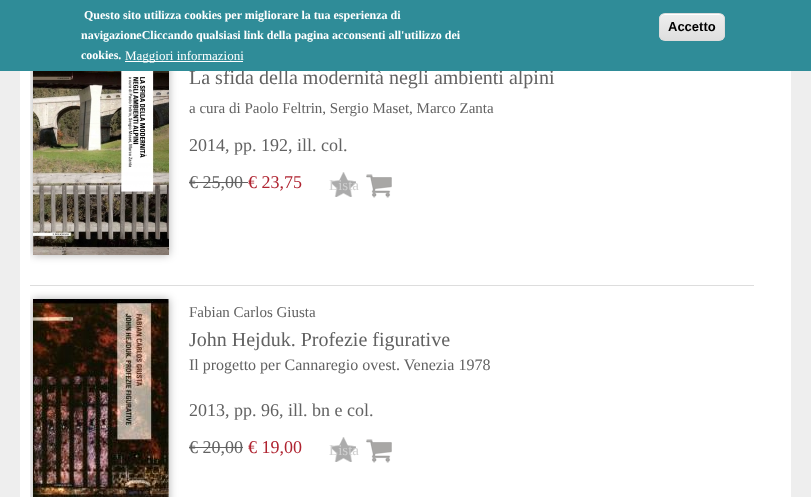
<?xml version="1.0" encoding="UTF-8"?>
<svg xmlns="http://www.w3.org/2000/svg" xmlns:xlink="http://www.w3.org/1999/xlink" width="811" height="497">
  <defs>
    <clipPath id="clip1"><rect x="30" y="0" width="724" height="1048" /></clipPath>
    <clipPath id="clip2"><rect x="659" y="13" width="66" height="28" rx="6" /></clipPath>
    <linearGradient id="g1" gradientUnits="userSpaceOnUse" x1="692" y1="14" x2="692" y2="40"><stop offset="0.05" stop-color="#ededed" /><stop offset="1" stop-color="#dfdfdf" /></linearGradient>
  </defs>
  <rect width="100%" height="100%" fill="#eeeeee" />
  <rect x="20" y="71" width="771" height="426" fill="#ffffff" />
  <rect x="30" y="285" width="724" height="1" fill="#dddddd" />
  <g clip-path="url(#clip1)">
    <rect x="33" y="64" width="136" height="191" fill="#000000" fill-opacity="0.3" filter="blur(4px)" />
  </g>
  <image x="33" y="71" width="136" height="184" xlink:href="image1.png" />
  <rect x="189" y="182" width="59" height="1" fill="#626262" />
  <image x="331" y="172" width="25" height="25" xlink:href="image2.png" />
  <image x="366" y="174" width="26" height="24" xlink:href="image3.png" />
  <g clip-path="url(#clip1)">
    <rect x="33" y="299" width="136" height="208" fill="#000000" fill-opacity="0.3" filter="blur(4px)" />
  </g>
  <image x="33" y="299" width="136" height="198" xlink:href="image4.png" />
  <rect x="189" y="447" width="54" height="1" fill="#626262" />
  <image x="331" y="437" width="25" height="25" xlink:href="image2.png" />
  <image x="366" y="439" width="26" height="24" xlink:href="image3.png" />
  <text x="189" y="84" style="font-family: Liberation Serif; font-size: 20px; fill: #626262">La sfida della modernità negli ambienti alpini</text>
  <rect width="811" height="71" fill="#2f8c98" />
  <g clip-path="url(#clip2)">
    <rect x="659" y="14" width="66" height="26" fill="url(#g1)" />
  </g>
  <path d="M 665 15 h 54 c 3 0 5 2 5 5 c 0 -8 -8 -6 -14 -6 h -36 c -6 0 -14 -2 -14 6 c 0 -3 2 -5 5 -5 z" fill="#ffffff" />
  <rect x="659.5" y="13.5" width="65" height="27" rx="5.5" fill="none" stroke="#dcdcdc" />
  <text x="668" y="31" style="font-family: Liberation Sans; font-size: 13px; font-weight: bold; fill: #000000">Accetto</text>
  <rect x="125" y="61" width="118" height="1" fill="#ffffff" />
  <text x="125" y="60" style="font-family: Liberation Serif; font-size: 13px; fill: #ffffff">Maggiori informazioni</text>
  <text x="81" y="59" style="font-family: Liberation Serif; font-size: 12px; font-weight: bold; fill: #ffffff">cookies.</text>
  <text x="81" y="39" style="font-family: Liberation Serif; font-size: 12px; font-weight: bold; fill: #ffffff">navigazioneCliccando qualsiasi link della pagina acconsenti all'utilizzo dei</text>
  <text x="84" y="19" style="font-family: Liberation Serif; font-size: 12px; font-weight: bold; fill: #ffffff">Questo sito utilizza cookies per migliorare la tua esperienza di</text>
  <text x="189" y="113" style="font-family: Liberation Serif; font-size: 15px; fill: #626262">a cura di Paolo Feltrin, Sergio Maset, Marco Zanta</text>
  <text x="189" y="151" style="font-family: Liberation Serif; font-size: 18px; fill: #626262">2014, pp. 192, ill. col.</text>
  <text x="189" y="188" style="font-family: Liberation Serif; font-size: 18px; fill: #626262">€ 25,00</text>
  <text x="248" y="188" style="font-family: Liberation Serif; font-size: 18px; fill: #af2330">€ 23,75</text>
  <text x="329" y="190" style="font-family: Liberation Serif; font-size: 15px; fill: #cfcfcf">Lista</text>
  <text x="189" y="317" style="font-family: Liberation Serif; font-size: 15px; fill: #626262">Fabian Carlos Giusta</text>
  <text x="189" y="346" style="font-family: Liberation Serif; font-size: 20px; fill: #626262">John Hejduk. Profezie figurative</text>
  <text x="189" y="370" style="font-family: Liberation Serif; font-size: 16px; fill: #626262">Il progetto per Cannaregio ovest. Venezia 1978</text>
  <text x="189" y="416" style="font-family: Liberation Serif; font-size: 18px; fill: #626262">2013, pp. 96, ill. bn e col.</text>
  <text x="189" y="453" style="font-family: Liberation Serif; font-size: 18px; fill: #626262">€ 20,00</text>
  <text x="248" y="453" style="font-family: Liberation Serif; font-size: 18px; fill: #af2330">€ 19,00</text>
  <text x="329" y="455" style="font-family: Liberation Serif; font-size: 15px; fill: #cfcfcf">Lista</text>
</svg>
